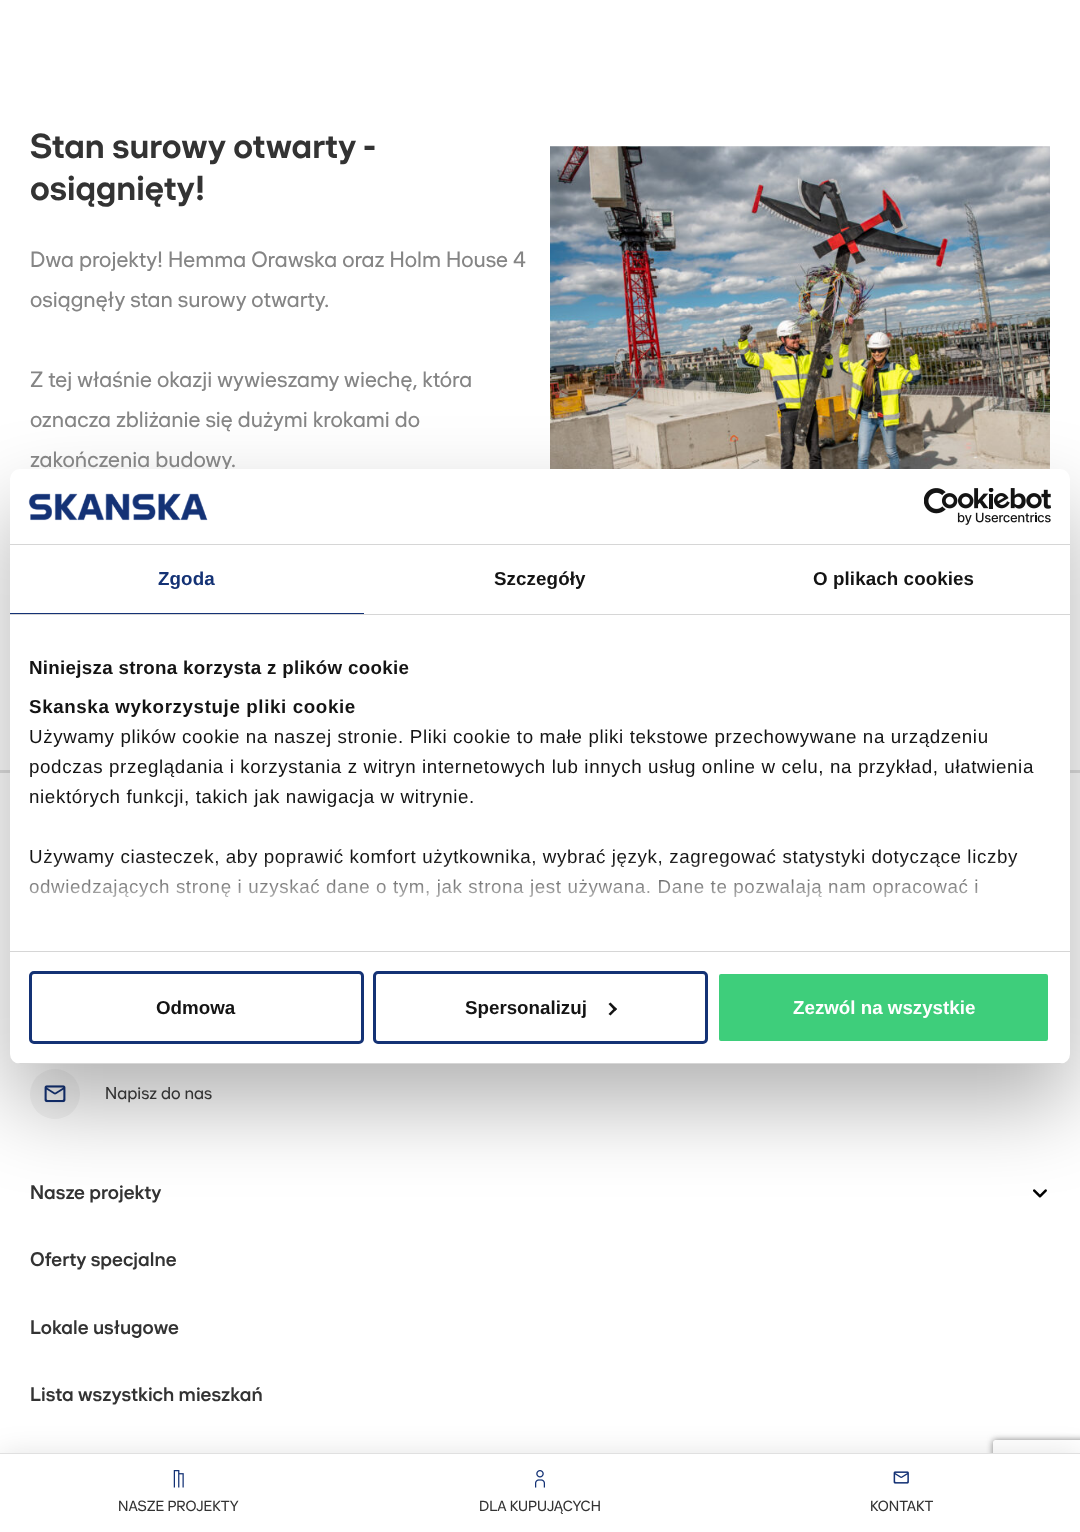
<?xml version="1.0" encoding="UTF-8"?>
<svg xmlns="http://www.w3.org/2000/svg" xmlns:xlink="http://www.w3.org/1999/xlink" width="1080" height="1532">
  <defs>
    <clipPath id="clip1"><path d="M 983 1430 h 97 v 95 h -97 z m 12.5 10 h 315 c 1.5 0 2.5 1 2.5 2.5 v 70 c 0 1.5 -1 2.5 -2.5 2.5 h -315 c -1.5 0 -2.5 -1 -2.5 -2.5 v -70 c 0 -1.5 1 -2.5 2.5 -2.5 z" clip-rule="evenodd" /></clipPath>
    <linearGradient id="g1" gradientUnits="userSpaceOnUse" x1="532" y1="951" x2="532" y2="858"><stop offset="0" stop-color="#ffffff" /><stop offset="0.5" stop-color="#ffffff" stop-opacity="0.8" /><stop offset="1" stop-color="#ffffff" stop-opacity="0" /></linearGradient>
    <clipPath id="clip2"><rect x="10" y="469" width="1060" height="595" rx="10" /></clipPath>
  </defs>
  <rect width="100%" height="100%" fill="#ffffff" />
  <image x="550" y="146" width="500" height="323" xlink:href="image1.png" />
  <rect y="770" width="1080" height="3" fill="#e0e0e0" />
  <circle cx="55" cy="1094" r="25" fill="#f5f5f5" />
  <image x="44" y="1085" width="22" height="18" xlink:href="image4.png" />
  <image x="1033" y="1189" width="14" height="9" xlink:href="image5.png" />
  <rect x="10" y="509" width="1060" height="595" rx="10" fill="#000000" fill-opacity="0.3" filter="blur(42.5px)" />
  <rect y="1455" width="1080" height="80" fill="#000000" fill-opacity="0.12" filter="blur(15px)" />
  <g clip-path="url(#clip1)">
    <rect x="993" y="1440" width="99" height="75" rx="2.5" fill="#808080" filter="blur(3px)" />
  </g>
  <rect x="-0.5" y="1453.5" width="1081" height="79" fill="#ffffff" stroke="#e0e0e0" />
  <image x="173" y="1470" width="11" height="18" xlink:href="image6.png" />
  <image x="535" y="1470" width="10" height="18" xlink:href="image7.png" />
  <image x="893" y="1471" width="16" height="13" xlink:href="image8.png" />
  <text x="30" y="158" style="font-family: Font; font-size: 35px; font-weight: bold; fill: #333333">Stan surowy otwarty -</text>
  <text x="30" y="200" style="font-family: Font; font-size: 35px; font-weight: bold; fill: #333333">osiągnięty!</text>
  <text x="30" y="267" style="font-family: Font; font-size: 22.5px; fill: #858585">Dwa projekty! Hemma Orawska oraz Holm House 4</text>
  <text x="30" y="307" style="font-family: Font; font-size: 22.5px; fill: #858585">osiągnęły stan surowy otwarty.</text>
  <text x="30" y="387" style="font-family: Font; font-size: 22.5px; fill: #858585">Z tej właśnie okazji wywieszamy wiechę, która</text>
  <text x="30" y="427" style="font-family: Font; font-size: 22.5px; fill: #858585">oznacza zbliżanie się dużymi krokami do</text>
  <text x="30" y="467" style="font-family: Font; font-size: 22.5px; fill: #858585">zakończenia budowy.</text>
  <rect x="10" y="469" width="1060" height="595" rx="10" fill="#ffffff" />
  <rect x="10" y="544" width="1060" height="1" fill="#d6d6d6" />
  <image x="28" y="493" width="180" height="28" xlink:href="image2.png" />
  <image x="924" y="488" width="127" height="37" xlink:href="image3.png" />
  <rect x="10" y="614" width="1060" height="1" fill="#d6d6d6" />
  <rect x="10" y="613" width="354" height="1" fill="#143275" />
  <text x="158" y="585" style="font-family: Liberation Sans; font-size: 18.75px; font-weight: bold; letter-spacing: 0.1px; fill: #143275">Zgoda</text>
  <text x="494" y="585" style="font-family: Liberation Sans; font-size: 18.75px; font-weight: bold; letter-spacing: 0.1px; fill: #141414">Szczegóły</text>
  <text x="813" y="585" style="font-family: Liberation Sans; font-size: 18.75px; font-weight: bold; letter-spacing: 0.1px; fill: #141414">O plikach cookies</text>
  <rect x="10" y="951" width="1060" height="1" fill="#d6d6d6" />
  <text x="29" y="674" style="font-family: Liberation Sans; font-size: 18.75px; font-weight: bold; letter-spacing: 0.3px; fill: #141414">Niniejsza strona korzysta z plików cookie</text>
  <text x="29" y="713" style="font-family: Liberation Sans; font-size: 18.75px; font-weight: bold; letter-spacing: 0.62px; fill: #141414">Skanska wykorzystuje pliki cookie</text>
  <text x="29" y="743" style="font-family: Liberation Sans; font-size: 18.75px; letter-spacing: 0.62px; fill: #141414">Używamy plików cookie na naszej stronie. Pliki cookie to małe pliki tekstowe przechowywane na urządzeniu</text>
  <text x="29" y="773" style="font-family: Liberation Sans; font-size: 18.75px; letter-spacing: 0.62px; fill: #141414">podczas przeglądania i korzystania z witryn internetowych lub innych usług online w celu, na przykład, ułatwienia</text>
  <text x="29" y="803" style="font-family: Liberation Sans; font-size: 18.75px; letter-spacing: 0.62px; fill: #141414">niektórych funkcji, takich jak nawigacja w witrynie.</text>
  <text x="29" y="863" style="font-family: Liberation Sans; font-size: 18.75px; letter-spacing: 0.62px; fill: #141414">Używamy ciasteczek, aby poprawić komfort użytkownika, wybrać język, zagregować statystyki dotyczące liczby</text>
  <text x="29" y="893" style="font-family: Liberation Sans; font-size: 18.75px; letter-spacing: 0.62px; fill: #141414">odwiedzających stronę i uzyskać dane o tym, jak strona jest używana. Dane te pozwalają nam opracować i</text>
  <rect x="29" y="859" width="986" height="38" fill="url(#g1)" />
  <g clip-path="url(#clip2)">
    <rect x="10" y="1063" width="1060" height="1" fill="#d6d6d6" />
  </g>
  <rect x="30.5" y="972.5" width="332" height="70" rx="3.5" fill="none" stroke="#143275" stroke-width="3" />
  <text x="156" y="1014" style="font-family: Liberation Sans; font-size: 18.75px; font-weight: bold; fill: #141414">Odmowa</text>
  <rect x="374.5" y="972.5" width="332" height="70" rx="3.5" fill="none" stroke="#143275" stroke-width="3" />
  <text x="465" y="1014" style="font-family: Liberation Sans; font-size: 18.75px; font-weight: bold; fill: #141414">Spersonalizuj</text>
  <path d="M 610.5 1002.5 l 6.5 6.5 l -2 2 l -6.5 -7 z" fill="#141414" />
  <path d="M 615 1007.5 l 2 1.5 l -6.5 6.5 l -2 -1.5 z" fill="#141414" />
  <rect x="717.5" y="972.5" width="332" height="70" rx="3.5" fill="#3ece7b" stroke="#ffffff" stroke-width="3" />
  <text x="793" y="1014" style="font-family: Liberation Sans; font-size: 18.75px; font-weight: bold; fill: #ffffff">Zezwól na wszystkie</text>
  <text x="105" y="1099" style="font-family: Font; font-size: 17.5px; fill: #333333">Napisz do nas</text>
  <text x="30" y="1199" style="font-family: Font; font-size: 20px; font-weight: 500; fill: #333333">Nasze projekty</text>
  <text x="30" y="1266" style="font-family: Font; font-size: 20px; font-weight: 500; fill: #333333">Oferty specjalne</text>
  <text x="30" y="1334" style="font-family: Font; font-size: 20px; font-weight: 500; fill: #333333">Lokale usługowe</text>
  <text x="30" y="1401" style="font-family: Font; font-size: 20px; font-weight: 500; fill: #333333">Lista wszystkich mieszkań</text>
  <text x="118" y="1511" style="font-family: Font; font-size: 15px; fill: #333333">NASZE PROJEKTY</text>
  <text x="479" y="1511" style="font-family: Font; font-size: 15px; fill: #333333">DLA KUPUJĄCYCH</text>
  <text x="870" y="1511" style="font-family: Font; font-size: 15px; fill: #333333">KONTAKT</text>
</svg>
